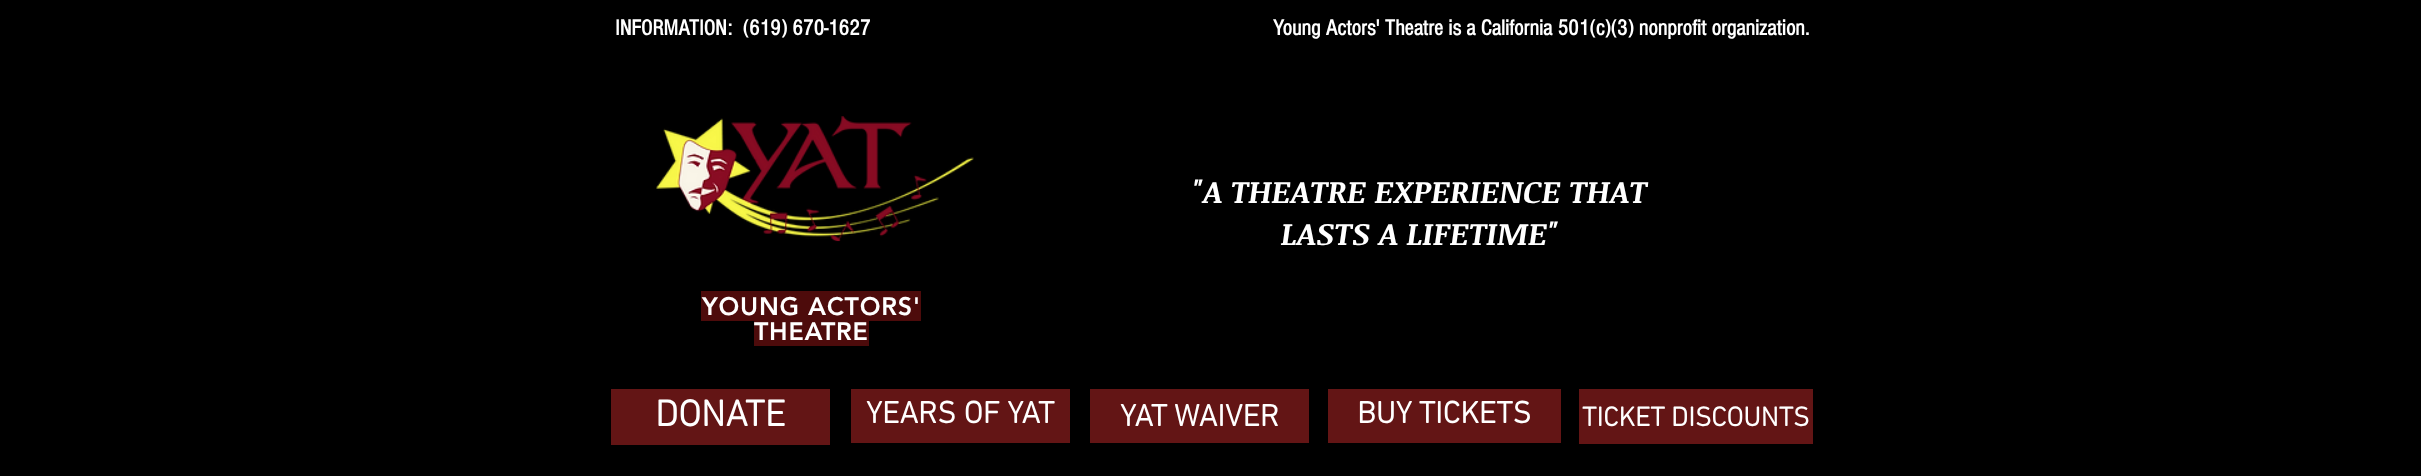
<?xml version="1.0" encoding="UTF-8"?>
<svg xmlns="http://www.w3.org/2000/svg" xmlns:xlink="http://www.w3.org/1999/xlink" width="2421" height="476">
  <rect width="100%" height="100%" fill="#000000" />
  <image x="656" y="116" width="318" height="126" xlink:href="image1.png" />
  <rect x="701" y="291" width="220" height="30" fill="#4d0b0b" />
  <rect x="754" y="321" width="115" height="25" fill="#4d0b0b" />
  <rect x="611" y="389" width="219" height="56" fill="#631515" />
  <rect x="851" y="389" width="219" height="54" fill="#631515" />
  <rect x="1090" y="389" width="219" height="54" fill="#631515" />
  <rect x="1328" y="389" width="233" height="54" fill="#631515" />
  <rect x="1579" y="389" width="234" height="55" fill="#631515" />
  <text x="615" y="35" style="font-family: 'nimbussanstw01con'; font-size: 22.5px; font-weight: bold; fill: #ffffff" xml:space="preserve">INFORMATION:  (619) 670-1627</text>
  <text x="1273" y="35" style="font-family: 'nimbussanstw01con'; font-size: 22.5px; font-weight: bold; fill: #ffffff">Young Actors' Theatre is a California 501(c)(3) nonprofit organization.</text>
  <text x="1192" y="203" style="font-family: Noticia Text; font-size: 31.25px; font-weight: bold; font-style: italic; fill: #ffffff">"A THEATRE EXPERIENCE THAT</text>
  <text x="1281" y="245" style="font-family: Noticia Text; font-size: 31.25px; font-weight: bold; font-style: italic; fill: #ffffff">LASTS A LIFETIME"</text>
  <text x="702" y="315" style="font-family: 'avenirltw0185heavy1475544'; font-size: 25px; font-weight: 900; letter-spacing: 0.75px; fill: #ffffff">YOUNG ACTORS'</text>
  <text x="754" y="340" style="font-family: 'avenirltw0185heavy1475544'; font-size: 25px; font-weight: 900; letter-spacing: 0.75px; fill: #ffffff">THEATRE</text>
  <text x="655" y="426" style="font-family: 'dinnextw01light'; font-size: 37.5px; font-weight: bold; fill: #ffffff">DONATE</text>
  <text x="866" y="423" style="font-family: 'dinnextw01light'; font-size: 31.25px; font-weight: bold; fill: #ffffff">YEARS OF YAT</text>
  <text x="1120" y="426" style="font-family: 'dinnextw01light'; font-size: 31.25px; font-weight: bold; fill: #ffffff">YAT WAIVER</text>
  <text x="1357" y="423" style="font-family: 'dinnextw01light'; font-size: 31.25px; font-weight: bold; fill: #ffffff">BUY TICKETS</text>
  <text x="1582" y="426" style="font-family: 'dinnextw01light'; font-size: 27.5px; font-weight: bold; fill: #ffffff">TICKET DISCOUNTS</text>
</svg>
